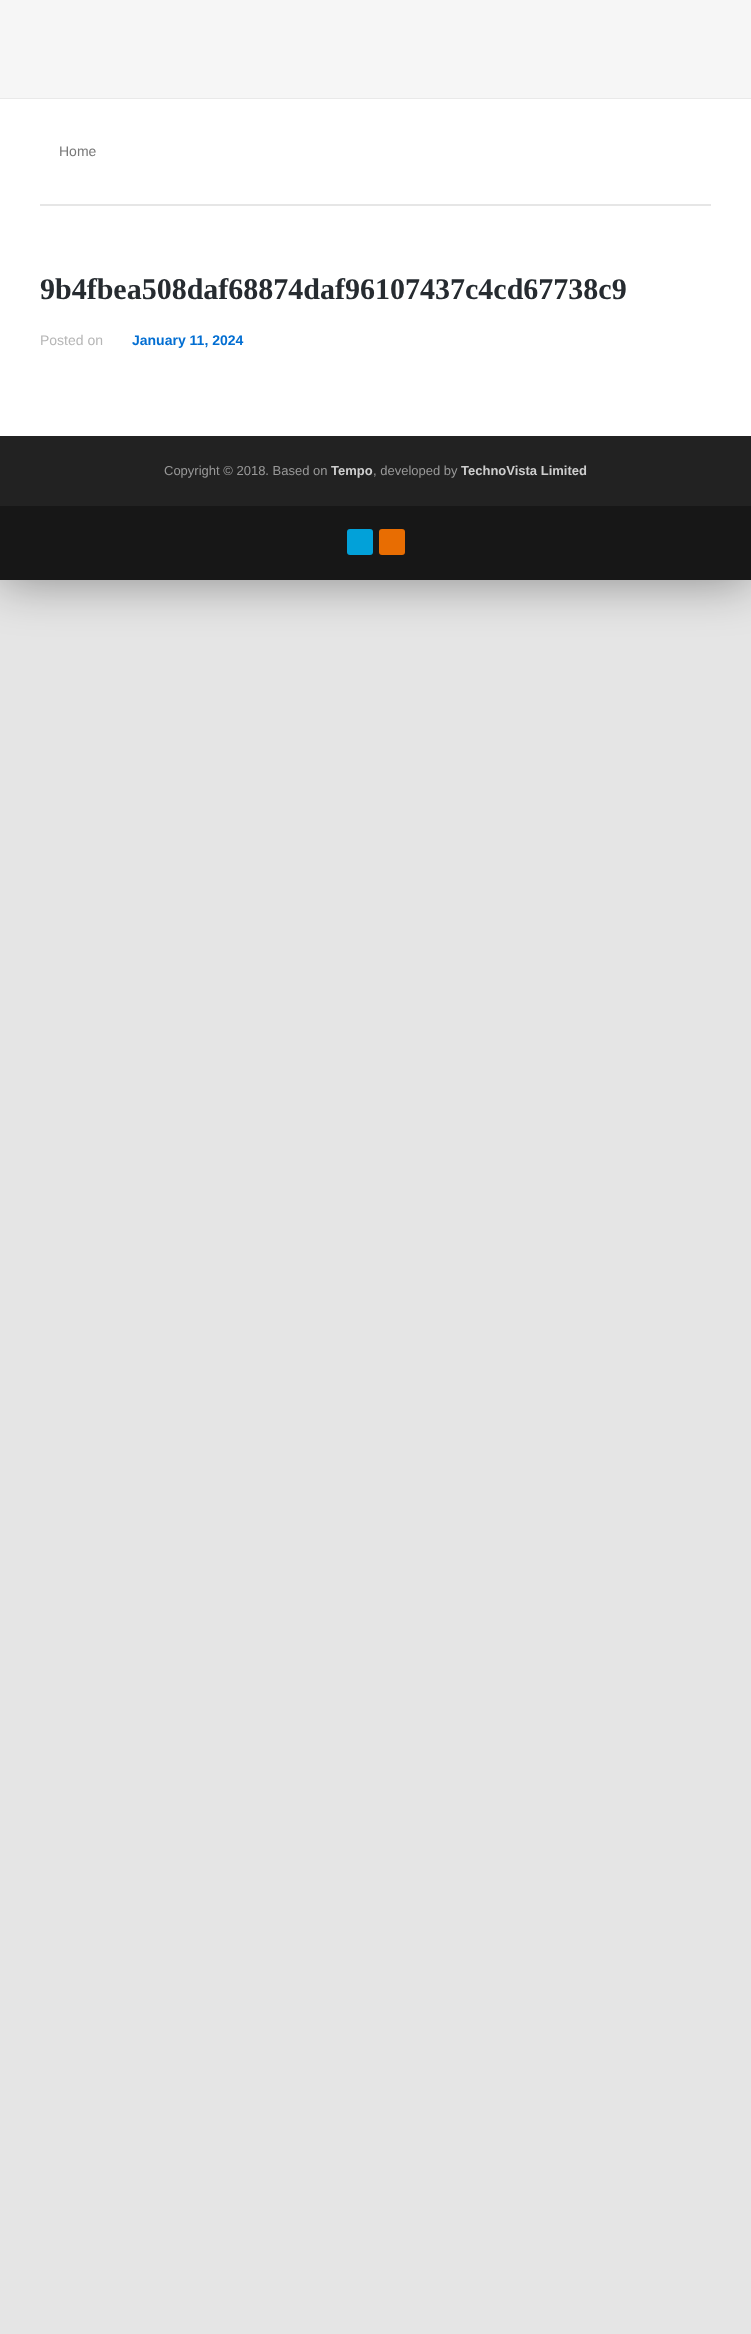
<?xml version="1.0" encoding="UTF-8"?>
<svg xmlns="http://www.w3.org/2000/svg" xmlns:xlink="http://www.w3.org/1999/xlink" width="751" height="2334">
  <rect width="100%" height="100%" fill="#e5e5e5" />
  <rect x="-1" y="-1" width="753" height="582" fill="#000000" fill-opacity="0.4" filter="blur(25px)" />
  <rect width="751" height="98" fill="#f6f6f6" />
  <rect y="98" width="751" height="1" fill="#e9e9e9" />
  <rect y="99" width="751" height="337" fill="#ffffff" />
  <rect x="40" y="204" width="671" height="2" fill="#e6e6e6" />
  <rect y="436" width="751" height="70" fill="#222222" />
  <rect y="506" width="751" height="74" fill="#171717" />
  <rect x="347" y="529" width="26" height="26" rx="3" fill="#02a1d9" />
  <rect x="379" y="529" width="26" height="26" rx="3" fill="#e86d02" />
  <text x="59" y="156" style="font-family: Liberation Sans; font-size: 14px; fill: #787878">Home</text>
  <text x="40" y="299" style="font-family: Liberation Serif; font-size: 30px; font-weight: bold; fill: #262b30">9b4fbea508daf68874daf96107437c4cd67738c9</text>
  <text x="40" y="345" style="font-family: Liberation Sans; font-size: 14px; fill: #b6b6b6">Posted on</text>
  <text x="132" y="345" style="font-family: Liberation Sans; font-size: 14px; font-weight: bold; fill: #026ed2">January 11, 2024</text>
  <text x="164" y="475" style="font-family: Liberation Sans; font-size: 13px; fill: #999999">Copyright © 2018. Based on</text>
  <text x="331" y="475" style="font-family: Liberation Sans; font-size: 13px; font-weight: bold; fill: #cdcdcd">Tempo</text>
  <text x="373" y="475" style="font-family: Liberation Sans; font-size: 13px; fill: #999999">, developed by</text>
  <text x="461" y="475" style="font-family: Liberation Sans; font-size: 13px; font-weight: bold; fill: #cdcdcd">TechnoVista Limited</text>
</svg>
